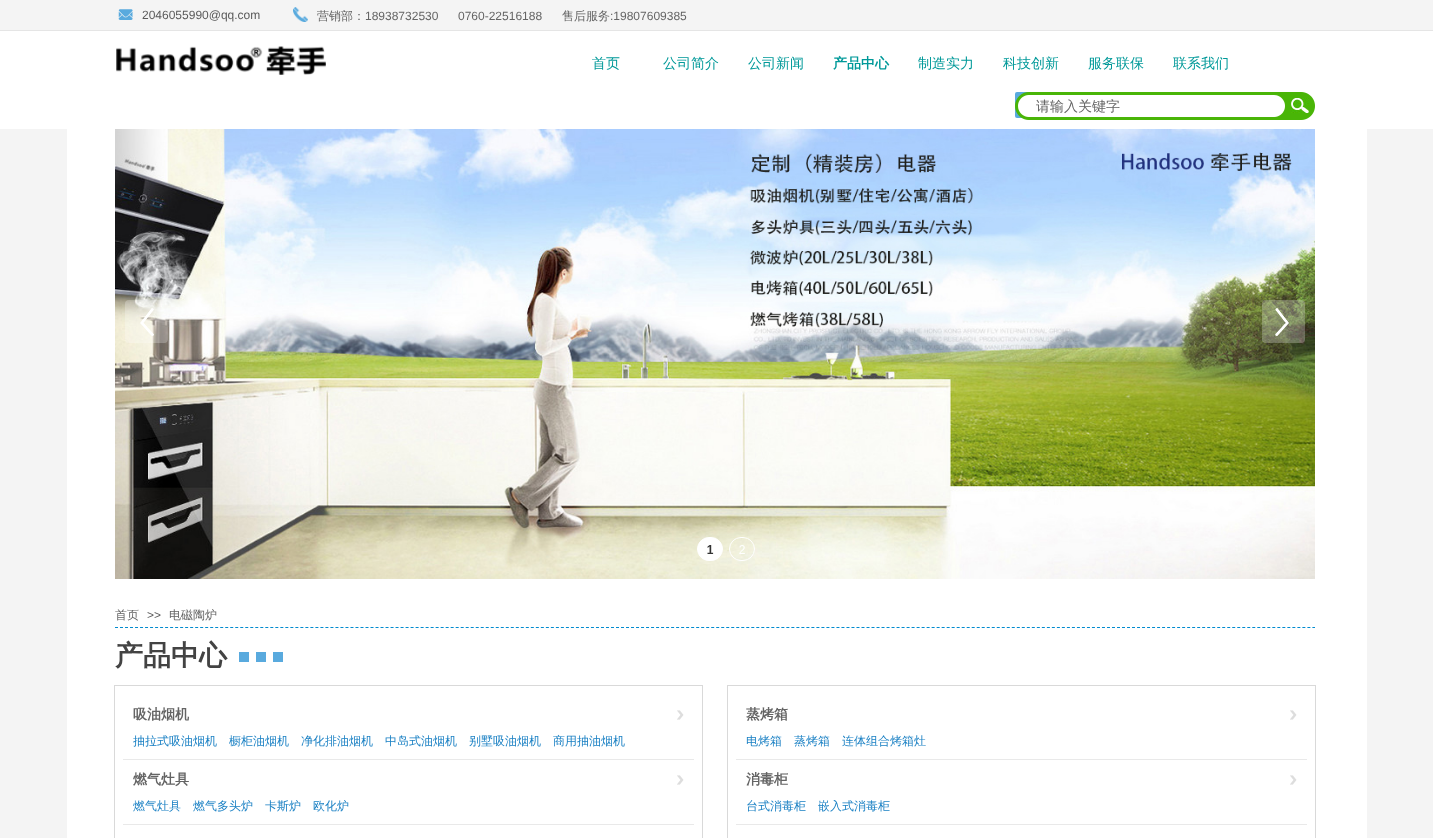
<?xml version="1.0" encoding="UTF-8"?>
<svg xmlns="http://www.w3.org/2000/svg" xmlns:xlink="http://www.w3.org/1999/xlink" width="1433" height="838">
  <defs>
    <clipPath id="clip1"><rect x="133" y="701" width="561" height="52" /></clipPath>
  </defs>
  <rect width="100%" height="100%" fill="#f4f4f4" />
  <rect x="67" y="129" width="1300" height="709" fill="#ffffff" />
  <image x="118" y="9" width="15" height="11" xlink:href="image1.png" />
  <image x="293" y="7" width="15" height="15" xlink:href="image2.png" />
  <rect y="30" width="1433" height="1" fill="#e5e5e5" />
  <rect y="31" width="1433" height="98" fill="#ffffff" />
  <image x="116" y="46" width="210" height="29" xlink:href="image3.png" />
  <rect x="1015" y="92" width="180" height="26" rx="2" fill="#59aade" />
  <image x="1015" y="92" width="300" height="28" xlink:href="image4.png" />
  <image x="115" y="129" width="1200" height="450" xlink:href="image5.png" />
  <path d="M 115 627.5 h 1200" fill="none" stroke="#028bcf" stroke-dasharray="3 2.01" />
  <image x="239" y="652" width="44" height="10" xlink:href="image6.png" />
  <rect x="114.5" y="685.5" width="588" height="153" fill="none" stroke="#d9d9d9" />
  <rect x="123" y="759" width="571" height="1" fill="#e9e9e9" />
  <image x="677" y="710" width="7" height="10" xlink:href="image7.png" />
  <rect x="123" y="824" width="571" height="1" fill="#e9e9e9" />
  <image x="677" y="775" width="7" height="10" xlink:href="image7.png" />
  <rect x="727.5" y="685.5" width="588" height="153" fill="none" stroke="#d9d9d9" />
  <rect x="736" y="759" width="571" height="1" fill="#e9e9e9" />
  <image x="1290" y="710" width="7" height="10" xlink:href="image7.png" />
  <rect x="736" y="824" width="571" height="1" fill="#e9e9e9" />
  <image x="1290" y="775" width="7" height="10" xlink:href="image7.png" />
  <text x="142" y="19" style="font-family: Liberation Sans; font-size: 12px; fill: #5a5a5a">2046055990@qq.com</text>
  <text x="317" y="20" style="font-family: WenQuanYi Zen Hei; font-size: 12px; font-weight: 500; fill: #646464">营销部：</text>
  <text x="365" y="20" style="font-family: Liberation Sans; font-size: 12px; fill: #646464">18938732530</text>
  <text x="458" y="20" style="font-family: Liberation Sans; font-size: 12px; fill: #646464">0760-22516188</text>
  <text x="562" y="20" style="font-family: WenQuanYi Zen Hei; font-size: 12px; font-weight: 500; fill: #646464">售后服务</text>
  <text x="610" y="20" style="font-family: Liberation Sans; font-size: 12px; fill: #646464">:19807609385</text>
  <text x="592" y="68" style="font-family: WenQuanYi Zen Hei; font-size: 14px; font-weight: 500; fill: #009999">首页</text>
  <text x="663" y="68" style="font-family: WenQuanYi Zen Hei; font-size: 14px; font-weight: 500; fill: #009999">公司简介</text>
  <text x="748" y="68" style="font-family: WenQuanYi Zen Hei; font-size: 14px; font-weight: 500; fill: #009999">公司新闻</text>
  <text x="833" y="68" style="font-family: WenQuanYi Zen Hei; font-size: 14px; font-weight: bold; fill: #009999">产品中心</text>
  <text x="918" y="68" style="font-family: WenQuanYi Zen Hei; font-size: 14px; font-weight: 500; fill: #009999">制造实力</text>
  <text x="1003" y="68" style="font-family: WenQuanYi Zen Hei; font-size: 14px; font-weight: 500; fill: #009999">科技创新</text>
  <text x="1088" y="68" style="font-family: WenQuanYi Zen Hei; font-size: 14px; font-weight: 500; fill: #009999">服务联保</text>
  <text x="1173" y="68" style="font-family: WenQuanYi Zen Hei; font-size: 14px; font-weight: 500; fill: #009999">联系我们</text>
  <text x="1036" y="111" style="font-family: WenQuanYi Zen Hei; font-size: 14px; font-weight: 500; fill: #646464">请输入关键字</text>
  <text x="115" y="619" style="font-family: WenQuanYi Zen Hei; font-size: 12px; font-weight: 500; fill: #646464">首页</text>
  <text x="147" y="619" style="font-family: Liberation Sans; font-size: 12px; fill: #5a5a5a">&gt;&gt;</text>
  <text x="169" y="619" style="font-family: WenQuanYi Zen Hei; font-size: 12px; font-weight: 500; fill: #646464">电磁陶炉</text>
  <text x="115" y="665" style="font-family: WenQuanYi Zen Hei; font-size: 28px; font-weight: bold; fill: #434343">产品中心</text>
  <text x="133" y="719" style="font-family: WenQuanYi Zen Hei; font-size: 14px; font-weight: bold; fill: #646464">吸油烟机</text>
  <g clip-path="url(#clip1)">
    <text x="133" y="745" style="font-family: WenQuanYi Zen Hei; font-size: 12px; font-weight: 500; fill: #1b81c4">抽拉式吸油烟机</text>
  </g>
  <text x="229" y="745" style="font-family: WenQuanYi Zen Hei; font-size: 12px; font-weight: 500; fill: #1b81c4">橱柜油烟机</text>
  <text x="301" y="745" style="font-family: WenQuanYi Zen Hei; font-size: 12px; font-weight: 500; fill: #1b81c4">净化排油烟机</text>
  <text x="385" y="745" style="font-family: WenQuanYi Zen Hei; font-size: 12px; font-weight: 500; fill: #1b81c4">中岛式油烟机</text>
  <text x="469" y="745" style="font-family: WenQuanYi Zen Hei; font-size: 12px; font-weight: 500; fill: #1b81c4">别墅吸油烟机</text>
  <text x="553" y="745" style="font-family: WenQuanYi Zen Hei; font-size: 12px; font-weight: 500; fill: #1b81c4">商用抽油烟机</text>
  <text x="133" y="784" style="font-family: WenQuanYi Zen Hei; font-size: 14px; font-weight: bold; fill: #646464">燃气灶具</text>
  <text x="133" y="810" style="font-family: WenQuanYi Zen Hei; font-size: 12px; font-weight: 500; fill: #1b81c4">燃气灶具</text>
  <text x="193" y="810" style="font-family: WenQuanYi Zen Hei; font-size: 12px; font-weight: 500; fill: #1b81c4">燃气多头炉</text>
  <text x="265" y="810" style="font-family: WenQuanYi Zen Hei; font-size: 12px; font-weight: 500; fill: #1b81c4">卡斯炉</text>
  <text x="313" y="810" style="font-family: WenQuanYi Zen Hei; font-size: 12px; font-weight: 500; fill: #1b81c4">欧化炉</text>
  <text x="746" y="719" style="font-family: WenQuanYi Zen Hei; font-size: 14px; font-weight: bold; fill: #646464">蒸烤箱</text>
  <text x="746" y="745" style="font-family: WenQuanYi Zen Hei; font-size: 12px; font-weight: 500; fill: #1b81c4">电烤箱</text>
  <text x="794" y="745" style="font-family: WenQuanYi Zen Hei; font-size: 12px; font-weight: 500; fill: #1b81c4">蒸烤箱</text>
  <text x="842" y="745" style="font-family: WenQuanYi Zen Hei; font-size: 12px; font-weight: 500; fill: #1b81c4">连体组合烤箱灶</text>
  <text x="746" y="784" style="font-family: WenQuanYi Zen Hei; font-size: 14px; font-weight: bold; fill: #646464">消毒柜</text>
  <text x="746" y="810" style="font-family: WenQuanYi Zen Hei; font-size: 12px; font-weight: 500; fill: #1b81c4">台式消毒柜</text>
  <text x="818" y="810" style="font-family: WenQuanYi Zen Hei; font-size: 12px; font-weight: 500; fill: #1b81c4">嵌入式消毒柜</text>
</svg>
